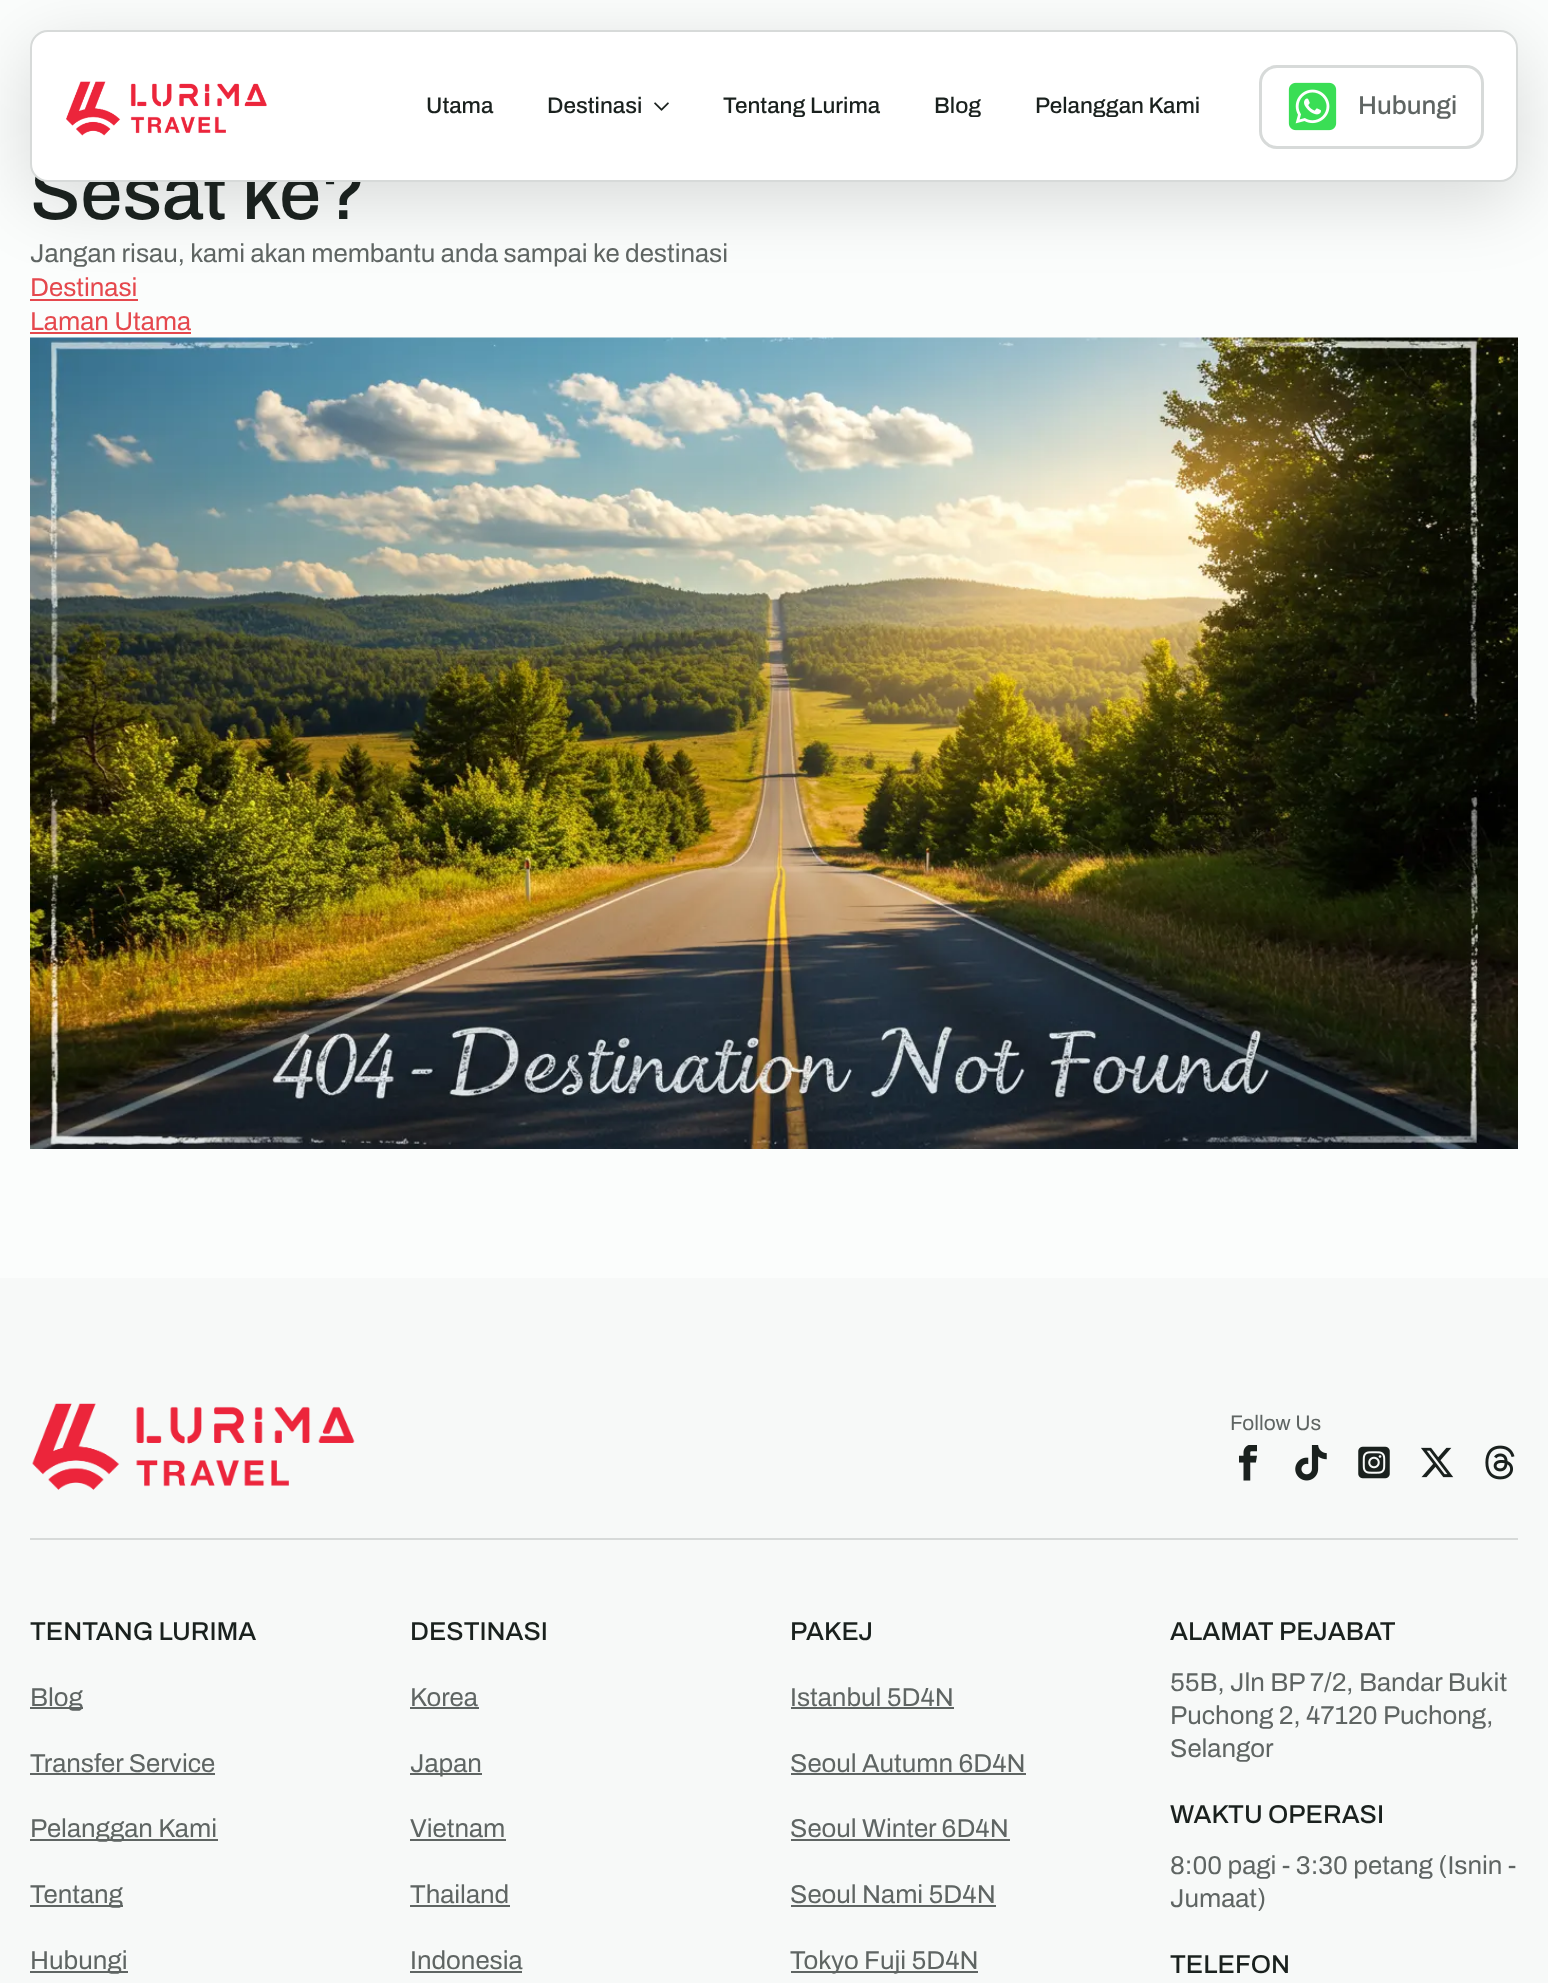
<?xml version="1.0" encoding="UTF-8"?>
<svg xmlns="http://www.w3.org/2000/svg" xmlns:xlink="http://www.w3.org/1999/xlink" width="1548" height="1983">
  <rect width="100%" height="100%" fill="#fbfdfc" />
  <rect x="30" y="299" width="108" height="2" fill="#e5484d" />
  <rect x="30" y="48" width="1488" height="152" rx="18" fill="#000000" fill-opacity="0.14" filter="blur(36px)" />
  <rect x="30" y="332" width="161" height="2" fill="#e5484d" />
  <image x="30" y="337" width="1488" height="812" xlink:href="image4.png" />
  <rect y="1278" width="1548" height="705" fill="#f7f9f8" />
  <rect x="30" y="1538" width="1488" height="2" fill="#d7dad9" />
  <image x="32" y="1403" width="323" height="87" xlink:href="image5.png" />
  <image x="1239" y="1445" width="18" height="36" xlink:href="image6.png" />
  <image x="1295" y="1445" width="32" height="36" xlink:href="image7.png" />
  <image x="1358" y="1446" width="32" height="33" xlink:href="image8.png" />
  <image x="1421" y="1447" width="33" height="31" xlink:href="image9.png" />
  <image x="1485" y="1445" width="30" height="35" xlink:href="image10.png" />
  <rect x="30" y="1707" width="53" height="2" fill="#5f6563" />
  <rect x="30" y="1773" width="185" height="2" fill="#5f6563" />
  <rect x="30" y="1839" width="188" height="2" fill="#5f6563" />
  <rect x="30" y="1905" width="93" height="2" fill="#5f6563" />
  <rect x="30" y="1971" width="98" height="2" fill="#5f6563" />
  <rect x="410" y="1707" width="69" height="2" fill="#5f6563" />
  <rect x="410" y="1773" width="72" height="2" fill="#5f6563" />
  <rect x="410" y="1839" width="96" height="2" fill="#5f6563" />
  <rect x="410" y="1905" width="100" height="2" fill="#5f6563" />
  <rect x="410" y="1971" width="112" height="2" fill="#5f6563" />
  <rect x="791" y="1707" width="163" height="2" fill="#5f6563" />
  <rect x="791" y="1773" width="235" height="2" fill="#5f6563" />
  <rect x="791" y="1839" width="219" height="2" fill="#5f6563" />
  <rect x="791" y="1905" width="205" height="2" fill="#5f6563" />
  <rect x="791" y="1971" width="187" height="2" fill="#5f6563" />
  <text x="30" y="219" style="font-family: Archivo; font-size: 75.5px; font-weight: 500; fill: #1a211e">Sesat ke?</text>
  <rect x="31" y="31" width="1486" height="150" rx="17" fill="#ffffff" stroke="#d7dad9" stroke-width="2" />
  <text x="1035" y="113" style="font-family: Archivo; font-size: 22.5px; font-weight: 500; fill: #1a211e">Pelanggan Kami</text>
  <text x="934" y="113" style="font-family: Archivo; font-size: 22.5px; font-weight: 500; fill: #1a211e">Blog</text>
  <text x="723" y="113" style="font-family: Archivo; font-size: 22.5px; font-weight: 500; fill: #1a211e">Tentang Lurima</text>
  <image x="654" y="102" width="15" height="9" xlink:href="image2.png" />
  <text x="547" y="113" style="font-family: Archivo; font-size: 22.5px; font-weight: 500; fill: #1a211e">Destinasi</text>
  <text x="426" y="113" style="font-family: Archivo; font-size: 22.5px; font-weight: 500; fill: #1a211e">Utama</text>
  <rect x="1260.5" y="66.5" width="222" height="81" rx="16.5" fill="none" stroke="#d7dad9" stroke-width="3" />
  <image x="1288" y="82" width="49" height="49" xlink:href="image3.png" />
  <text x="1358" y="114" style="font-family: Archivo; font-size: 25.85px; font-weight: 500; fill: #5f6563">Hubungi</text>
  <image x="66" y="81" width="201" height="55" xlink:href="image1.png" />
  <text x="30" y="262" style="font-family: Archivo; font-size: 25.85px; fill: #5f6563">Jangan risau, kami akan membantu anda sampai ke destinasi</text>
  <text x="30" y="296" style="font-family: Archivo; font-size: 25.85px; fill: #e5484d">Destinasi</text>
  <text x="30" y="330" style="font-family: Archivo; font-size: 25.85px; fill: #e5484d">Laman Utama</text>
  <text x="1230" y="1430" style="font-family: Archivo; font-size: 21px; fill: #5f6563">Follow Us</text>
  <text x="30" y="1640" style="font-family: Archivo; font-size: 25.85px; font-weight: 500; fill: #1a211e">TENTANG LURIMA</text>
  <text x="30" y="1706" style="font-family: Archivo; font-size: 25.85px; fill: #5f6563">Blog</text>
  <text x="30" y="1772" style="font-family: Archivo; font-size: 25.85px; fill: #5f6563">Transfer Service</text>
  <text x="30" y="1837" style="font-family: Archivo; font-size: 25.85px; fill: #5f6563">Pelanggan Kami</text>
  <text x="30" y="1903" style="font-family: Archivo; font-size: 25.85px; fill: #5f6563">Tentang</text>
  <text x="30" y="1969" style="font-family: Archivo; font-size: 25.85px; fill: #5f6563">Hubungi</text>
  <text x="410" y="1640" style="font-family: Archivo; font-size: 25.85px; font-weight: 500; fill: #1a211e">DESTINASI</text>
  <text x="410" y="1706" style="font-family: Archivo; font-size: 25.85px; fill: #5f6563">Korea</text>
  <text x="410" y="1772" style="font-family: Archivo; font-size: 25.85px; fill: #5f6563">Japan</text>
  <text x="410" y="1837" style="font-family: Archivo; font-size: 25.85px; fill: #5f6563">Vietnam</text>
  <text x="410" y="1903" style="font-family: Archivo; font-size: 25.85px; fill: #5f6563">Thailand</text>
  <text x="410" y="1969" style="font-family: Archivo; font-size: 25.85px; fill: #5f6563">Indonesia</text>
  <text x="790" y="1640" style="font-family: Archivo; font-size: 25.85px; font-weight: 500; fill: #1a211e">PAKEJ</text>
  <text x="790" y="1706" style="font-family: Archivo; font-size: 25.85px; fill: #5f6563">Istanbul 5D4N</text>
  <text x="790" y="1772" style="font-family: Archivo; font-size: 25.85px; fill: #5f6563">Seoul Autumn 6D4N</text>
  <text x="790" y="1837" style="font-family: Archivo; font-size: 25.85px; fill: #5f6563">Seoul Winter 6D4N</text>
  <text x="790" y="1903" style="font-family: Archivo; font-size: 25.85px; fill: #5f6563">Seoul Nami 5D4N</text>
  <text x="790" y="1969" style="font-family: Archivo; font-size: 25.85px; fill: #5f6563">Tokyo Fuji 5D4N</text>
  <text x="1170" y="1640" style="font-family: Archivo; font-size: 25.85px; font-weight: 500; fill: #1a211e">ALAMAT PEJABAT</text>
  <text x="1170" y="1691" style="font-family: Archivo; font-size: 25.85px; fill: #5f6563">55B, Jln BP 7/2, Bandar Bukit</text>
  <text x="1170" y="1724" style="font-family: Archivo; font-size: 25.85px; fill: #5f6563">Puchong 2, 47120 Puchong,</text>
  <text x="1170" y="1757" style="font-family: Archivo; font-size: 25.85px; fill: #5f6563">Selangor</text>
  <text x="1170" y="1823" style="font-family: Archivo; font-size: 25.85px; font-weight: 500; fill: #1a211e">WAKTU OPERASI</text>
  <text x="1170" y="1874" style="font-family: Archivo; font-size: 25.85px; fill: #5f6563">8:00 pagi - 3:30 petang (Isnin -</text>
  <text x="1170" y="1907" style="font-family: Archivo; font-size: 25.85px; fill: #5f6563">Jumaat)</text>
  <text x="1170" y="1973" style="font-family: Archivo; font-size: 25.85px; font-weight: 500; fill: #1a211e">TELEFON</text>
</svg>
